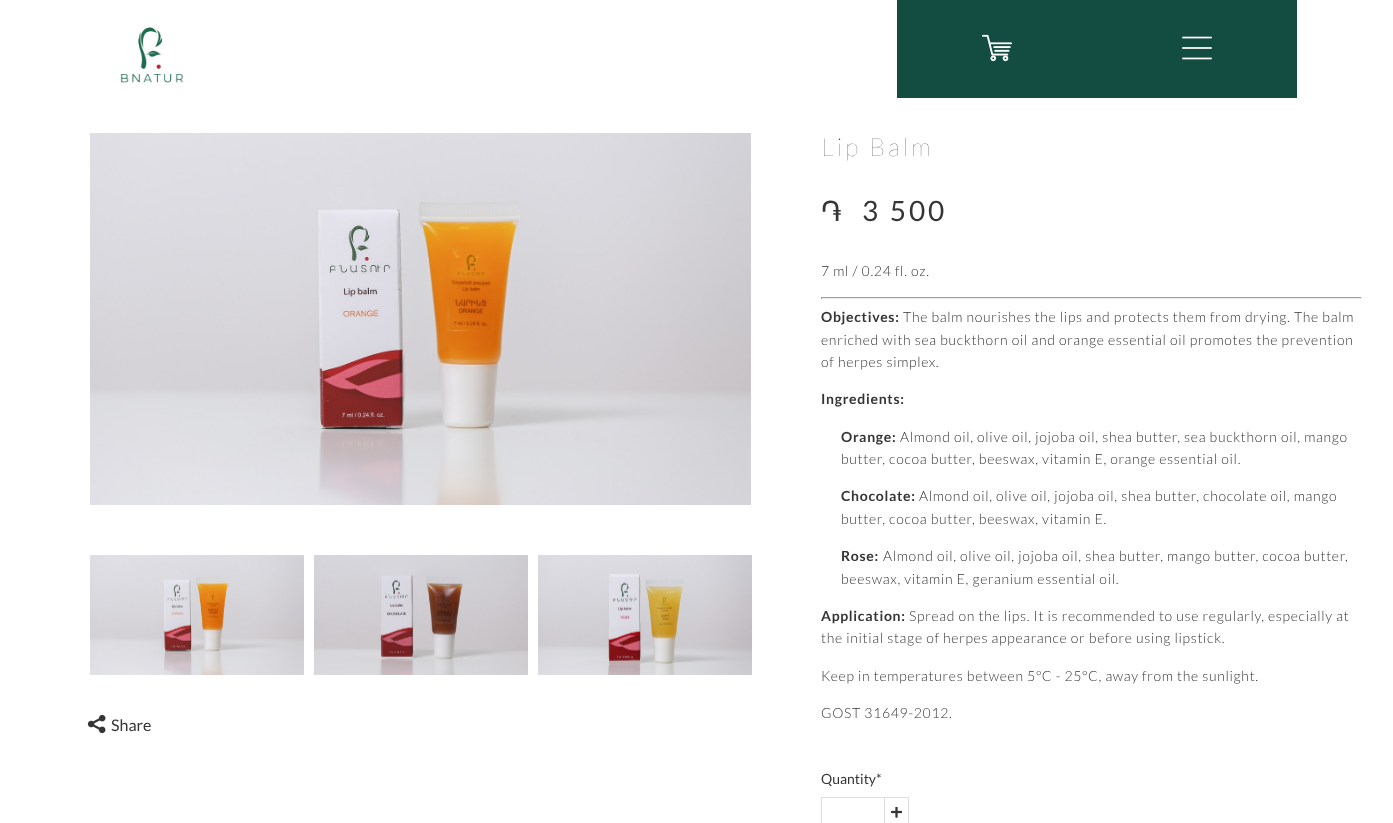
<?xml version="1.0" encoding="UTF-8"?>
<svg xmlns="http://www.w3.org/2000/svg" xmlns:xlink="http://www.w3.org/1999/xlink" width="1393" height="823">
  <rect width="100%" height="100%" fill="#ffffff" />
  <image x="120" y="27" width="64" height="56" xlink:href="image1.png" />
  <rect x="897" width="400" height="98" fill="#134c41" />
  <image x="982" y="34" width="30" height="28" xlink:href="image2.png" />
  <image x="1182" y="36" width="30" height="24" xlink:href="image3.png" />
  <image x="90" y="133" width="661" height="372" xlink:href="image4.png" />
  <image x="90" y="555" width="214" height="120" xlink:href="image5.png" />
  <image x="314" y="555" width="214" height="120" xlink:href="image6.png" />
  <image x="538" y="555" width="214" height="120" xlink:href="image7.png" />
  <image x="87" y="714" width="19" height="20" xlink:href="image8.png" />
  <rect x="821" y="297" width="541" height="1" fill="#9f9f9f" />
  <rect x="1361" y="297" width="1" height="2" fill="#eeeeee" />
  <rect x="821" y="298" width="541" height="1" fill="#eeeeee" />
  <rect x="821" y="297" width="1" height="2" fill="#9f9f9f" />
  <rect x="821.5" y="797.5" width="63" height="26" fill="none" stroke="#dddddd" />
  <rect x="885" y="797" width="24" height="1" fill="#dddddd" />
  <rect x="908" y="797" width="1" height="26" fill="#dddddd" />
  <image x="891" y="807" width="11" height="11" xlink:href="image9.png" />
  <text x="111" y="731" style="font-family: Lato; font-size: 16px; fill: #353535">Share</text>
  <text x="821" y="156" style="font-family: Lato; font-size: 25px; font-weight: 100; letter-spacing: 3px; fill: #353535">Lip Balm</text>
  <text x="821" y="221" style="font-family: FreeSans; font-size: 28px; letter-spacing: 3px; fill: #353535">֏</text>
  <text x="862" y="221" style="font-family: Lato; font-size: 28px; letter-spacing: 3px; fill: #353535">3 500</text>
  <text x="821" y="276" style="font-family: Lato; font-size: 14px; font-weight: 300; letter-spacing: 0.7px; fill: #353535">7 ml / 0.24 fl. oz.</text>
  <text x="821" y="322" style="font-family: Lato; font-size: 14px; font-weight: bold; letter-spacing: 0.7px; fill: #353535">Objectives:</text>
  <text x="903" y="322" style="font-family: Lato; font-size: 14px; font-weight: 300; letter-spacing: 0.7px; fill: #353535">The balm nourishes the lips and protects them from drying. The balm</text>
  <text x="821" y="345" style="font-family: Lato; font-size: 14px; font-weight: 300; letter-spacing: 0.7px; fill: #353535">enriched with sea buckthorn oil and orange essential oil promotes the prevention</text>
  <text x="821" y="367" style="font-family: Lato; font-size: 14px; font-weight: 300; letter-spacing: 0.7px; fill: #353535">of herpes simplex.</text>
  <text x="821" y="404" style="font-family: Lato; font-size: 14px; font-weight: bold; letter-spacing: 0.7px; fill: #353535">Ingredients:</text>
  <text x="841" y="442" style="font-family: Lato; font-size: 14px; font-weight: bold; letter-spacing: 0.7px; fill: #353535">Orange:</text>
  <text x="900" y="442" style="font-family: Lato; font-size: 14px; font-weight: 300; letter-spacing: 0.7px; fill: #353535">Almond oil, olive oil, jojoba oil, shea butter, sea buckthorn oil, mango</text>
  <text x="841" y="464" style="font-family: Lato; font-size: 14px; font-weight: 300; letter-spacing: 0.7px; fill: #353535">butter, cocoa butter, beeswax, vitamin E, orange essential oil.</text>
  <text x="841" y="501" style="font-family: Lato; font-size: 14px; font-weight: bold; letter-spacing: 0.7px; fill: #353535">Chocolate:</text>
  <text x="919" y="501" style="font-family: Lato; font-size: 14px; font-weight: 300; letter-spacing: 0.7px; fill: #353535">Almond oil, olive oil, jojoba oil, shea butter, chocolate oil, mango</text>
  <text x="841" y="524" style="font-family: Lato; font-size: 14px; font-weight: 300; letter-spacing: 0.7px; fill: #353535">butter, cocoa butter, beeswax, vitamin E.</text>
  <text x="841" y="561" style="font-family: Lato; font-size: 14px; font-weight: bold; letter-spacing: 0.7px; fill: #353535">Rose:</text>
  <text x="883" y="561" style="font-family: Lato; font-size: 14px; font-weight: 300; letter-spacing: 0.7px; fill: #353535">Almond oil, olive oil, jojoba oil, shea butter, mango butter, cocoa butter,</text>
  <text x="841" y="584" style="font-family: Lato; font-size: 14px; font-weight: 300; letter-spacing: 0.7px; fill: #353535">beeswax, vitamin E, geranium essential oil.</text>
  <text x="821" y="621" style="font-family: Lato; font-size: 14px; font-weight: bold; letter-spacing: 0.7px; fill: #353535">Application:</text>
  <text x="909" y="621" style="font-family: Lato; font-size: 14px; font-weight: 300; letter-spacing: 0.7px; fill: #353535">Spread on the lips. It is recommended to use regularly, especially at</text>
  <text x="821" y="643" style="font-family: Lato; font-size: 14px; font-weight: 300; letter-spacing: 0.7px; fill: #353535">the initial stage of herpes appearance or before using lipstick.</text>
  <text x="821" y="681" style="font-family: Lato; font-size: 14px; font-weight: 300; letter-spacing: 0.7px; fill: #353535">Keep in temperatures between 5°C - 25°C, away from the sunlight.</text>
  <text x="821" y="718" style="font-family: Lato; font-size: 14px; font-weight: 300; letter-spacing: 0.7px; fill: #353535">GOST 31649-2012.</text>
  <text x="821" y="784" style="font-family: Lato; font-size: 14px; fill: #353535">Quantity*</text>
</svg>
